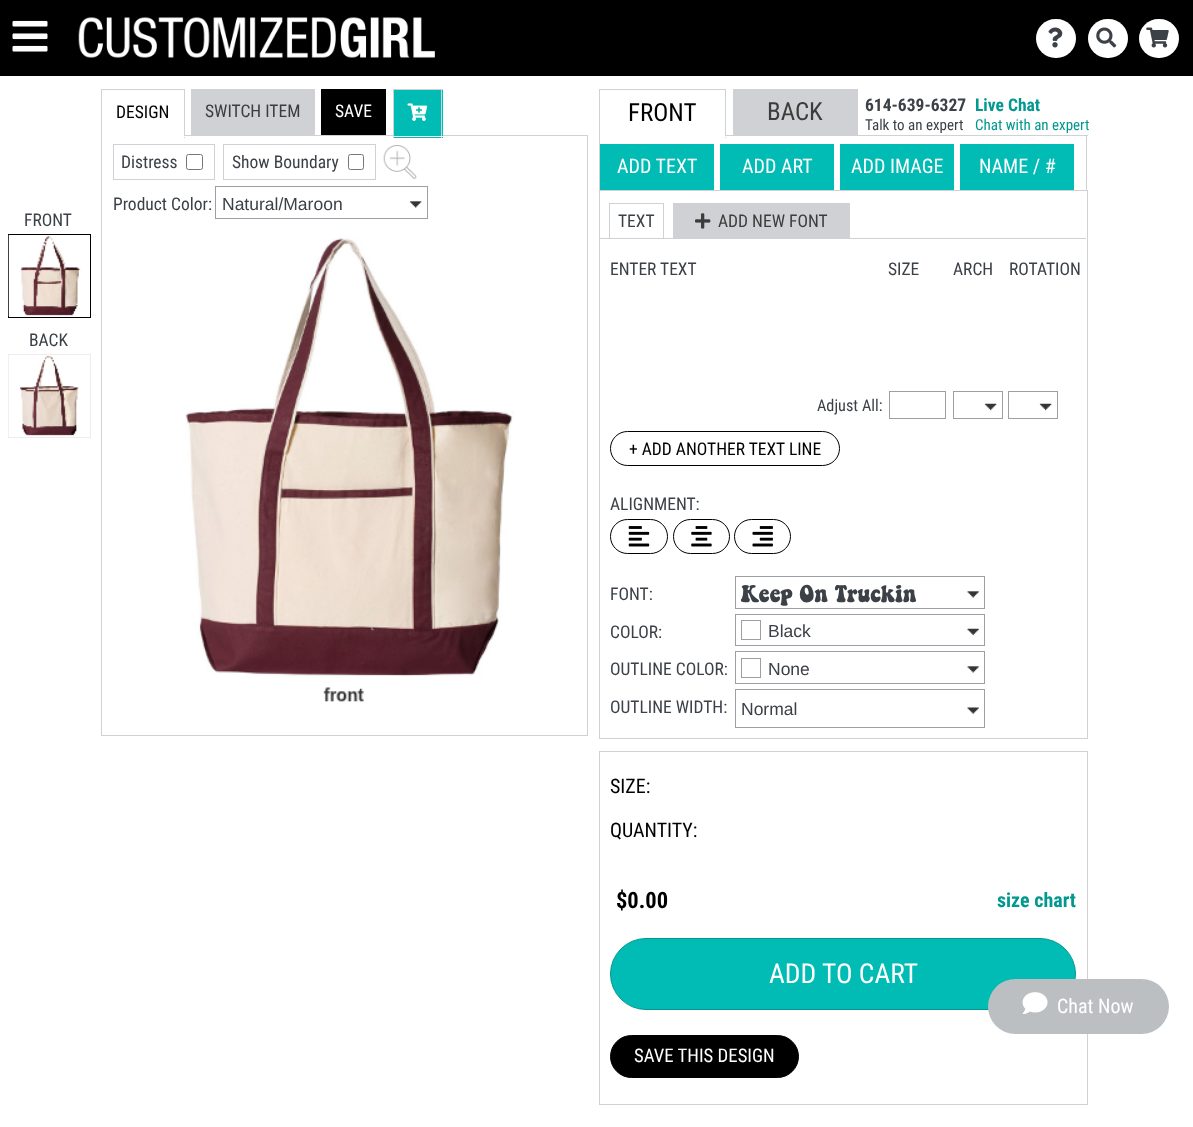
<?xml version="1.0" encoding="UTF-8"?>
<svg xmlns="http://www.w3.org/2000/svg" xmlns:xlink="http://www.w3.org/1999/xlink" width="1193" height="1127">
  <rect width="100%" height="100%" fill="#ffffff" />
  <rect width="1193" height="76" fill="#000000" />
  <image x="12" y="20" width="36" height="32" xlink:href="image1.png" />
  <image x="78" y="17" width="357" height="41" xlink:href="image2.png" />
  <rect x="1036" y="19" width="40" height="39" rx="19.5" fill="#ffffff" />
  <image x="1048" y="27" width="15" height="21" xlink:href="image3.png" />
  <rect x="1088" y="19" width="40" height="39" rx="19.5" fill="#ffffff" />
  <image x="1096" y="27" width="21" height="21" xlink:href="image4.png" />
  <rect x="1139" y="19" width="40" height="39" rx="19.5" fill="#ffffff" />
  <image x="1146" y="27" width="23" height="21" xlink:href="image5.png" />
  <rect x="101.5" y="135.5" width="486" height="600" fill="none" stroke="#cfd1d4" />
  <rect x="102" y="135" width="82" height="1" fill="#ffffff" />
  <rect x="101" y="89" width="84" height="1" fill="#cfd1d4" />
  <rect x="184" y="89" width="1" height="49" fill="#cfd1d4" />
  <rect x="101" y="136" width="84" height="1" fill="#ffffff" />
  <rect x="101" y="89" width="1" height="49" fill="#cfd1d4" />
  <rect x="191" y="89" width="124" height="46" fill="#cfd1d4" />
  <rect x="321" y="89" width="65" height="46" fill="#000000" />
  <rect x="394" y="90" width="49" height="48" fill="#00bcb4" />
  <rect x="393" y="89" width="50" height="1" fill="#cfd1d4" />
  <rect x="441" y="89" width="1" height="49" fill="#cfd1d4" />
  <rect x="393" y="136" width="50" height="1" fill="#ffffff" />
  <rect x="393" y="89" width="1" height="49" fill="#cfd1d4" />
  <image x="407" y="103" width="21" height="18" xlink:href="image6.png" />
  <rect x="113.5" y="144.5" width="101" height="35" fill="none" stroke="#cfd1d4" />
  <rect x="186.5" y="154.5" width="16" height="15" rx="2" fill="none" stroke="#767676" />
  <rect x="223.5" y="144.5" width="152" height="35" fill="none" stroke="#cfd1d4" />
  <rect x="348.5" y="154.5" width="15" height="15" rx="2" fill="none" stroke="#767676" />
  <image x="383" y="145" width="34" height="34" xlink:href="image7.png" />
  <image x="409" y="201" width="13" height="7" xlink:href="image8.png" />
  <rect x="215.5" y="186.5" width="212" height="32" fill="none" stroke="#9ca0a5" />
  <image x="185" y="238" width="329" height="464" xlink:href="image9.png" />
  <rect x="599" y="89" width="127" height="1" fill="#cfd1d4" />
  <rect x="725" y="89" width="1" height="49" fill="#cfd1d4" />
  <rect x="599" y="135" width="1" height="55" fill="#cfd1d4" />
  <rect x="599" y="136" width="127" height="1" fill="#ffffff" />
  <rect x="599" y="89" width="1" height="49" fill="#cfd1d4" />
  <rect x="733" y="89" width="125" height="46" fill="#cfd1d4" />
  <rect x="726" y="135" width="362" height="1" fill="#cfd1d4" />
  <rect x="1086" y="135" width="1" height="55" fill="#cfd1d4" />
  <rect x="600" y="144" width="114" height="46" fill="#00bcb4" />
  <rect x="720" y="144" width="114" height="46" fill="#00bcb4" />
  <rect x="840" y="144" width="114" height="46" fill="#00bcb4" />
  <rect x="960" y="144" width="114" height="46" fill="#00bcb4" />
  <rect x="599.5" y="190.5" width="488" height="548" fill="none" stroke="#cfd1d4" />
  <rect x="600" y="238" width="486" height="1" fill="#cfd1d4" />
  <rect x="609" y="203" width="55" height="1" fill="#cfd1d4" />
  <rect x="663" y="203" width="1" height="36" fill="#cfd1d4" />
  <rect x="609" y="203" width="1" height="36" fill="#cfd1d4" />
  <rect x="673" y="203" width="177" height="35" fill="#cfd1d4" />
  <image x="695" y="213" width="16" height="16" xlink:href="image10.png" />
  <rect x="889.5" y="391.5" width="56" height="27" fill="none" stroke="#9ca0a5" />
  <image x="984" y="403" width="13" height="8" xlink:href="image11.png" />
  <rect x="953.5" y="391.5" width="49" height="27" fill="none" stroke="#9ca0a5" />
  <image x="1039" y="403" width="13" height="8" xlink:href="image11.png" />
  <rect x="1008.5" y="391.5" width="49" height="27" fill="none" stroke="#9ca0a5" />
  <rect x="610.5" y="431.5" width="229" height="34" rx="17" fill="none" stroke="#000000" />
  <rect x="610.5" y="519.5" width="57" height="34" rx="17" fill="none" stroke="#000000" />
  <image x="628" y="526" width="22" height="21" xlink:href="image12.png" />
  <rect x="673.5" y="519.5" width="56" height="34" rx="17" fill="none" stroke="#000000" />
  <image x="691" y="526" width="21" height="21" xlink:href="image13.png" />
  <rect x="734.5" y="519.5" width="56" height="34" rx="17" fill="none" stroke="#000000" />
  <image x="752" y="526" width="21" height="21" xlink:href="image14.png" />
  <image x="967" y="591" width="12" height="7" xlink:href="image15.png" />
  <rect x="735.5" y="576.5" width="249" height="32" fill="none" stroke="#9ca0a5" />
  <image x="967" y="628" width="12" height="8" xlink:href="image16.png" />
  <rect x="735.5" y="614.5" width="249" height="31" fill="none" stroke="#9ca0a5" />
  <rect x="741.5" y="620.5" width="19" height="19" fill="none" stroke="#9ca0a5" />
  <image x="967" y="666" width="12" height="7" xlink:href="image17.png" />
  <rect x="735.5" y="651.5" width="249" height="32" fill="none" stroke="#9ca0a5" />
  <rect x="741.5" y="658.5" width="19" height="19" fill="none" stroke="#9ca0a5" />
  <image x="967" y="707" width="12" height="7" xlink:href="image18.png" />
  <rect x="735.5" y="689.5" width="249" height="38" fill="none" stroke="#9ca0a5" />
  <rect x="599.5" y="751.5" width="488" height="353" fill="none" stroke="#cfd1d4" />
  <rect x="610.5" y="938.5" width="465" height="71" rx="35.5" fill="#00bcb4" stroke="#02978f" />
  <rect x="610.5" y="1035.5" width="188" height="42" rx="21" fill="#000000" stroke="#000000" />
  <rect x="8.5" y="234.5" width="82" height="83" fill="none" stroke="#000000" />
  <image x="8" y="235" width="73" height="82" xlink:href="image19.png" />
  <rect x="8.5" y="354.5" width="82" height="83" fill="none" stroke="#ebeced" />
  <image x="8" y="355" width="71" height="81" xlink:href="image20.png" />
  <rect x="988" y="979" width="181" height="55" rx="27.5" fill="#bcbfc2" />
  <image x="1022" y="992" width="26" height="22" xlink:href="image21.png" />
  <text x="116" y="118" style="font-family: Roboto Condensed; font-size: 17.5px; fill: #000000">DESIGN</text>
  <text x="205" y="117" style="font-family: Roboto Condensed; font-size: 17.5px; fill: #3c3c3c">SWITCH ITEM</text>
  <text x="335" y="117" style="font-family: Roboto Condensed; font-size: 17.5px; fill: #ffffff">SAVE</text>
  <text x="121" y="168" style="font-family: Roboto Condensed; font-size: 17.5px; fill: #3c4147">Distress</text>
  <text x="232" y="168" style="font-family: Roboto Condensed; font-size: 17.5px; fill: #3c4147">Show Boundary</text>
  <text x="113" y="210" style="font-family: Roboto Condensed; font-size: 17.5px; fill: #3c4147">Product Color:</text>
  <text x="222" y="210" style="font-family: Liberation Sans; font-size: 17.5px; fill: #3c4147">Natural/Maroon</text>
  <text x="628" y="121" style="font-family: Roboto Condensed; font-size: 25px; fill: #000000">FRONT</text>
  <text x="767" y="120" style="font-family: Roboto Condensed; font-size: 25px; fill: #3c3c3c">BACK</text>
  <text x="865" y="111" style="font-family: Roboto Condensed; font-size: 17.5px; font-weight: bold; fill: #3c4147">614-639-6327</text>
  <text x="865" y="130" style="font-family: Roboto Condensed; font-size: 15px; fill: #3c4147">Talk to an expert</text>
  <text x="975" y="111" style="font-family: Roboto Condensed; font-size: 17.5px; font-weight: bold; fill: #02978f">Live Chat</text>
  <text x="975" y="130" style="font-family: Roboto Condensed; font-size: 15px; fill: #02978f">Chat with an expert</text>
  <text x="617" y="173" style="font-family: Roboto Condensed; font-size: 20px; fill: #ffffff">ADD TEXT</text>
  <text x="742" y="173" style="font-family: Roboto Condensed; font-size: 20px; fill: #ffffff">ADD ART</text>
  <text x="851" y="173" style="font-family: Roboto Condensed; font-size: 20px; fill: #ffffff">ADD IMAGE</text>
  <text x="979" y="173" style="font-family: Roboto Condensed; font-size: 20px; fill: #ffffff">NAME / #</text>
  <text x="618" y="227" style="font-family: Roboto Condensed; font-size: 17.5px; fill: #3c4147">TEXT</text>
  <text x="718" y="227" style="font-family: Roboto Condensed; font-size: 17.5px; fill: #3c3c3c">ADD NEW FONT</text>
  <text x="610" y="275" style="font-family: Roboto Condensed; font-size: 17.5px; fill: #3c4147">ENTER TEXT</text>
  <text x="888" y="275" style="font-family: Roboto Condensed; font-size: 17.5px; fill: #3c4147">SIZE</text>
  <text x="953" y="275" style="font-family: Roboto Condensed; font-size: 17.5px; fill: #3c4147">ARCH</text>
  <text x="1009" y="275" style="font-family: Roboto Condensed; font-size: 17.5px; fill: #3c4147">ROTATION</text>
  <text x="817" y="411" style="font-family: Roboto Condensed; font-size: 16.25px; fill: #3c4147">Adjust All:</text>
  <text x="629" y="455" style="font-family: Roboto Condensed; font-size: 17.5px; fill: #000000">+ ADD ANOTHER TEXT LINE</text>
  <text x="610" y="510" style="font-family: Roboto Condensed; font-size: 17.5px; fill: #3c4147">ALIGNMENT:</text>
  <text x="610" y="600" style="font-family: Roboto Condensed; font-size: 17.5px; fill: #3c4147">FONT:</text>
  <text x="741" y="602" style="font-family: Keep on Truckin; font-size: 22.5px; fill: #3c4147">Keep On Truckin</text>
  <text x="610" y="638" style="font-family: Roboto Condensed; font-size: 17.5px; fill: #3c4147">COLOR:</text>
  <text x="768" y="637" style="font-family: Liberation Sans; font-size: 17.5px; fill: #3c4147">Black</text>
  <text x="610" y="675" style="font-family: Roboto Condensed; font-size: 17.5px; fill: #3c4147">OUTLINE COLOR:</text>
  <text x="768" y="675" style="font-family: Liberation Sans; font-size: 17.5px; fill: #3c4147">None</text>
  <text x="610" y="713" style="font-family: Roboto Condensed; font-size: 17.5px; fill: #3c4147">OUTLINE WIDTH:</text>
  <text x="741" y="715" style="font-family: Liberation Sans; font-size: 17.5px; fill: #3c4147">Normal</text>
  <text x="610" y="793" style="font-family: Roboto Condensed; font-size: 20px; fill: #000000">SIZE:</text>
  <text x="610" y="837" style="font-family: Roboto Condensed; font-size: 20px; fill: #000000">QUANTITY:</text>
  <text x="616" y="908" style="font-family: Roboto Condensed; font-size: 22.5px; font-weight: bold; fill: #000000">$0.00</text>
  <text x="997" y="907" style="font-family: Roboto Condensed; font-size: 20px; font-weight: bold; fill: #02978f">size chart</text>
  <text x="769" y="983" style="font-family: Roboto Condensed; font-size: 27.5px; fill: #ffffff">ADD TO CART</text>
  <text x="634" y="1062" style="font-family: Roboto Condensed; font-size: 18.75px; fill: #ffffff">SAVE THIS DESIGN</text>
  <text x="24" y="226" style="font-family: Roboto Condensed; font-size: 17.5px; fill: #3c4147">FRONT</text>
  <text x="29" y="346" style="font-family: Roboto Condensed; font-size: 17.5px; fill: #3c4147">BACK</text>
  <text x="1057" y="1013" style="font-family: Roboto Condensed; font-size: 20px; fill: #ffffff">Chat Now</text>
</svg>
